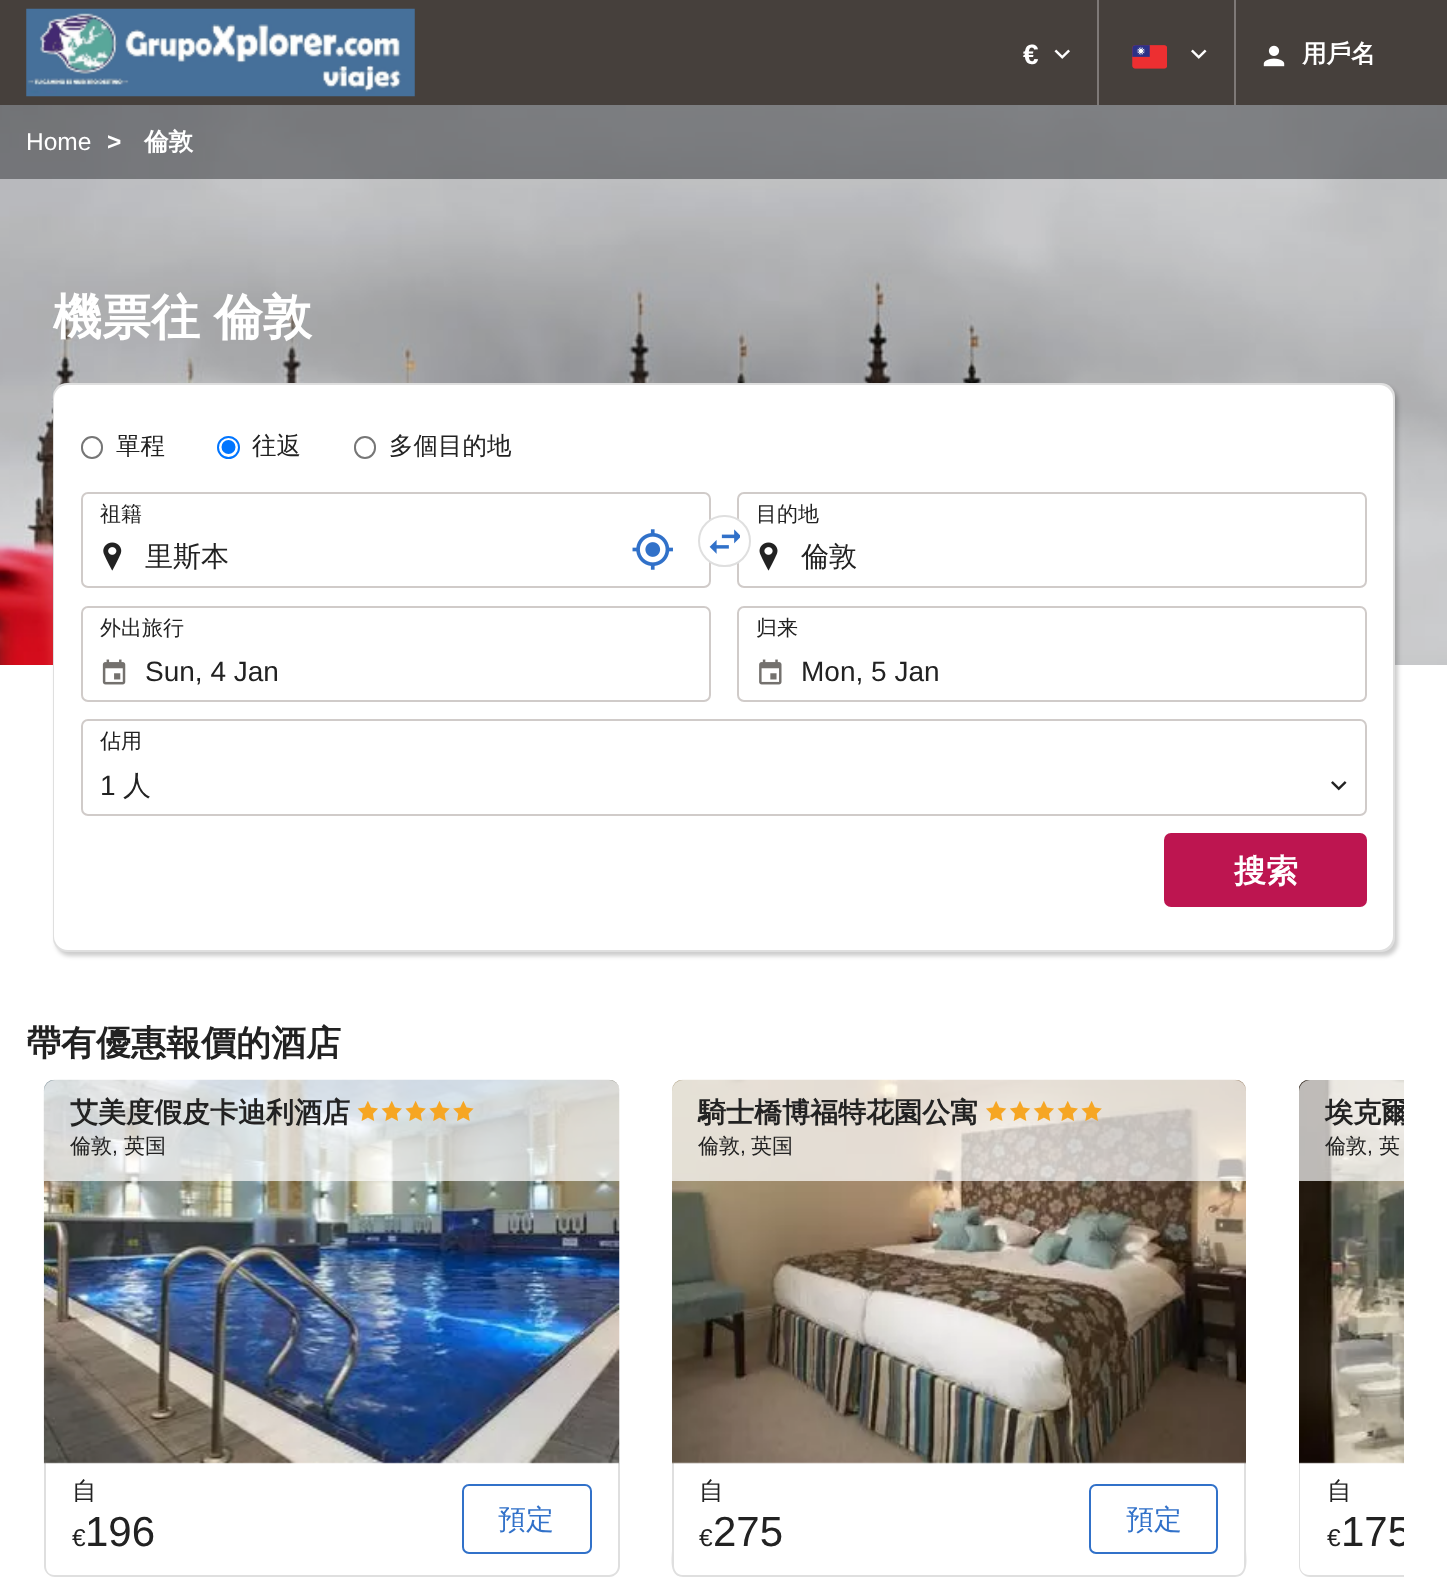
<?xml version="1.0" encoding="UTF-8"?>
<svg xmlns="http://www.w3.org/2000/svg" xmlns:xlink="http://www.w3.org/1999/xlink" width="1447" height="1589">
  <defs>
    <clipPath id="clip1"><rect x="44" y="1080" width="1360" height="497" /></clipPath>
  </defs>
  <rect width="100%" height="100%" fill="#ffffff" />
  <rect width="1447" height="105" fill="#46403c" />
  <image x="26" y="8" width="389" height="89" xlink:href="image1.png" />
  <rect x="1097" width="2" height="105" fill="#7e7977" />
  <image x="1054" y="49" width="16" height="10" xlink:href="image2.png" />
  <rect x="1234" width="2" height="105" fill="#7e7977" />
  <image x="1132" y="45" width="35" height="24" xlink:href="image3.png" />
  <image x="1191" y="49" width="16" height="10" xlink:href="image4.png" />
  <image x="1263" y="45" width="22" height="22" xlink:href="image5.png" />
  <image x="0" y="105" width="1447" height="560" xlink:href="image6.png" />
  <rect y="105" width="1447" height="74" fill="#303235" fill-opacity="0.5" />
  <rect x="56" y="387" width="1342" height="569" rx="14" fill="#000000" fill-opacity="0.2" filter="blur(2px)" />
  <rect x="53" y="383" width="1342" height="569" rx="14" fill="#dfdfdf" />
  <rect x="54" y="385" width="1339" height="565" rx="14" fill="#ffffff" />
  <rect x="82" y="437" width="20" height="21" rx="10" fill="none" stroke="#767676" stroke-width="2" />
  <circle cx="228.5" cy="447.5" r="10.5" fill="none" stroke="#0075ff" stroke-width="2" />
  <circle cx="228.5" cy="447" r="7" fill="#0075ff" />
  <rect x="355" y="437" width="20" height="21" rx="10" fill="none" stroke="#767676" stroke-width="2" />
  <image x="103" y="542" width="19" height="29" xlink:href="image7.png" />
  <rect x="82" y="493" width="628" height="94" rx="6" fill="none" stroke="#d0cbc9" stroke-width="2" />
  <image x="632" y="529" width="41" height="41" xlink:href="image8.png" />
  <image x="759" y="542" width="19" height="29" xlink:href="image10.png" />
  <rect x="738" y="493" width="628" height="94" rx="6" fill="none" stroke="#d0cbc9" stroke-width="2" />
  <rect x="699" y="516" width="51" height="50" rx="25" fill="#ffffff" stroke="#dfdfdf" stroke-width="2" />
  <image x="709" y="529" width="31" height="25" xlink:href="image9.png" />
  <image x="102" y="659" width="24" height="26" xlink:href="image11.png" />
  <rect x="82" y="607" width="628" height="94" rx="6" fill="none" stroke="#d0cbc9" stroke-width="2" />
  <image x="759" y="659" width="23" height="26" xlink:href="image12.png" />
  <rect x="738" y="607" width="628" height="94" rx="6" fill="none" stroke="#d0cbc9" stroke-width="2" />
  <rect x="82" y="720" width="1284" height="95" rx="6" fill="none" stroke="#d0cbc9" stroke-width="2" />
  <image x="1331" y="781" width="16" height="10" xlink:href="image13.png" />
  <rect x="1164" y="833" width="203" height="74" rx="7" fill="#bd1550" />
  <path d="M 46 1463 h -2 v 103 c 0 6 5 11 11 11 h 554 c 6 0 11 -5 11 -11 v -103 h -2 v 103 c 0 5 -4 9 -9 9 h -555 c -5 0 -8 -4 -8 -9 z" fill="#dfdfdf" />
  <image x="43" y="1079" width="577" height="385" xlink:href="image14.png" />
  <path d="M 55 1080 h 554 c 6 0 11 5 11 11 v 90 h -576 v -90 c 0 -6 5 -11 11 -11 z" fill="#ffffff" fill-opacity="0.7" />
  <image x="357" y="1101" width="117" height="20" xlink:href="image15.png" />
  <rect x="463" y="1485" width="128" height="68" rx="6" fill="none" stroke="#3171c9" stroke-width="2" />
  <path d="M 674 1463 h -2 v 86 c 0 8 -4 28 11 28 h 552 c 15 0 11 -20 11 -28 v -86 h -2 v 103 c 0 5 -4 9 -8 9 h -554 c -4 0 -8 -4 -8 -9 z" fill="#dfdfdf" />
  <image x="672" y="1079" width="574" height="385" xlink:href="image16.png" />
  <path d="M 683 1080 h 552 c 6 0 11 5 11 11 v 90 h -574 v -90 c 0 -6 5 -11 11 -11 z" fill="#ffffff" fill-opacity="0.7" />
  <image x="986" y="1101" width="116" height="20" xlink:href="image17.png" />
  <rect x="1090" y="1485" width="127" height="68" rx="6" fill="none" stroke="#3171c9" stroke-width="2" />
  <g clip-path="url(#clip1)">
    <path d="M 1300 1463 h -1 v 103 c 0 6 5 11 11 11 h 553 c 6 0 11 -5 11 -11 v -103 h -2 v 103 c 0 5 -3 9 -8 9 h -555 c -5 0 -9 -4 -9 -9 z" fill="#dfdfdf" />
  </g>
  <image x="1299" y="1080" width="105" height="384" xlink:href="image18.png" />
  <path d="M 1310 1080 h 94 v 101 h -105 v -90 c 0 -6 5 -11 11 -11 z" fill="#ffffff" fill-opacity="0.7" />
  <text x="1023" y="64" style="font-family: Liberation Sans; font-size: 28px; font-weight: bold; fill: #ffffff">€</text>
  <text x="1302" y="62" style="font-family: WenQuanYi Zen Hei; font-size: 24.5px; font-weight: bold; fill: #ffffff">用戶名</text>
  <text x="26" y="150" style="font-family: Liberation Sans; font-size: 24.5px; fill: #ffffff">Home</text>
  <text x="107" y="150" style="font-family: Liberation Sans; font-size: 24.5px; font-weight: bold; fill: #ffffff">&gt;</text>
  <text x="144" y="150" style="font-family: WenQuanYi Zen Hei; font-size: 24.5px; font-weight: bold; fill: #ffffff">倫敦</text>
  <text x="53" y="334" word-spacing="-1" style="font-family: WenQuanYi Zen Hei; font-size: 49px; font-weight: bold; fill: #ffffff">機票往 倫敦</text>
  <text x="116" y="454" style="font-family: WenQuanYi Zen Hei; font-size: 24.5px; font-weight: 500; fill: #222222">單程</text>
  <text x="252" y="454" style="font-family: WenQuanYi Zen Hei; font-size: 24.5px; font-weight: 500; fill: #222222">往返</text>
  <text x="389" y="454" style="font-family: WenQuanYi Zen Hei; font-size: 24.5px; font-weight: 500; fill: #222222">多個目的地</text>
  <text x="100" y="521" style="font-family: WenQuanYi Zen Hei; font-size: 21px; font-weight: 500; fill: #222222">祖籍</text>
  <text x="145" y="566" style="font-family: WenQuanYi Zen Hei; font-size: 28px; font-weight: 500; fill: #222222">里斯本</text>
  <text x="756" y="521" style="font-family: WenQuanYi Zen Hei; font-size: 21px; font-weight: 500; fill: #222222">目的地</text>
  <text x="801" y="566" style="font-family: WenQuanYi Zen Hei; font-size: 28px; font-weight: 500; fill: #222222">倫敦</text>
  <text x="100" y="635" style="font-family: WenQuanYi Zen Hei; font-size: 21px; font-weight: 500; fill: #222222">外出旅行</text>
  <text x="145" y="681" style="font-family: Liberation Sans; font-size: 28px; fill: #222222">Sun, 4 Jan</text>
  <text x="756" y="635" style="font-family: WenQuanYi Zen Hei; font-size: 21px; font-weight: 500; fill: #222222">归来</text>
  <text x="801" y="681" style="font-family: Liberation Sans; font-size: 28px; fill: #222222">Mon, 5 Jan</text>
  <text x="100" y="748" style="font-family: WenQuanYi Zen Hei; font-size: 21px; font-weight: 500; fill: #222222">佔用</text>
  <text x="100" y="795" style="font-family: Liberation Sans; font-size: 28px; fill: #222222">1</text>
  <text x="123" y="795" style="font-family: WenQuanYi Zen Hei; font-size: 28px; font-weight: 500; fill: #222222">人</text>
  <text x="1234" y="882" style="font-family: WenQuanYi Zen Hei; font-size: 32px; font-weight: bold; fill: #ffffff">搜索</text>
  <text x="26" y="1055" style="font-family: WenQuanYi Zen Hei; font-size: 35px; font-weight: bold; fill: #222222">帶有優惠報價的酒店</text>
  <text x="70" y="1122" style="font-family: WenQuanYi Zen Hei; font-size: 28px; font-weight: bold; fill: #222222">艾美度假皮卡迪利酒店</text>
  <text x="70" y="1153" style="font-family: WenQuanYi Zen Hei; font-size: 21px; font-weight: 500; fill: #222222">倫敦</text>
  <text x="112" y="1153" style="font-family: Liberation Sans; font-size: 21px; fill: #222222">,</text>
  <text x="124" y="1153" style="font-family: WenQuanYi Zen Hei; font-size: 21px; font-weight: 500; fill: #222222">英国</text>
  <text x="72" y="1499" style="font-family: WenQuanYi Zen Hei; font-size: 24.5px; font-weight: 500; fill: #222222">自</text>
  <text x="72" y="1546" style="font-family: Liberation Sans; font-size: 24.5px; fill: #222222">€</text>
  <text x="85" y="1546" style="font-family: Liberation Sans; font-size: 42px; fill: #222222">196</text>
  <text x="498" y="1529" style="font-family: WenQuanYi Zen Hei; font-size: 28px; font-weight: 500; fill: #3171c9">預定</text>
  <text x="698" y="1122" style="font-family: WenQuanYi Zen Hei; font-size: 28px; font-weight: bold; fill: #222222">騎士橋博福特花園公寓</text>
  <text x="698" y="1153" style="font-family: WenQuanYi Zen Hei; font-size: 21px; font-weight: 500; fill: #222222">倫敦</text>
  <text x="740" y="1153" style="font-family: Liberation Sans; font-size: 21px; fill: #222222">,</text>
  <text x="751" y="1153" style="font-family: WenQuanYi Zen Hei; font-size: 21px; font-weight: 500; fill: #222222">英国</text>
  <text x="699" y="1499" style="font-family: WenQuanYi Zen Hei; font-size: 24.5px; font-weight: 500; fill: #222222">自</text>
  <text x="699" y="1546" style="font-family: Liberation Sans; font-size: 24.5px; fill: #222222">€</text>
  <text x="713" y="1546" style="font-family: Liberation Sans; font-size: 42px; fill: #222222">275</text>
  <text x="1126" y="1529" style="font-family: WenQuanYi Zen Hei; font-size: 28px; font-weight: 500; fill: #3171c9">預定</text>
  <g clip-path="url(#clip1)">
    <text x="1325" y="1122" style="font-family: WenQuanYi Zen Hei; font-size: 28px; font-weight: bold; fill: #222222">埃克爾</text>
  </g>
  <text x="1325" y="1153" style="font-family: WenQuanYi Zen Hei; font-size: 21px; font-weight: 500; fill: #222222">倫敦</text>
  <text x="1367" y="1153" style="font-family: Liberation Sans; font-size: 21px; fill: #222222">,</text>
  <text x="1379" y="1153" style="font-family: WenQuanYi Zen Hei; font-size: 21px; font-weight: 500; fill: #222222">英</text>
  <text x="1327" y="1499" style="font-family: WenQuanYi Zen Hei; font-size: 24.5px; font-weight: 500; fill: #222222">自</text>
  <text x="1327" y="1546" style="font-family: Liberation Sans; font-size: 24.5px; fill: #222222">€</text>
  <g clip-path="url(#clip1)">
    <text x="1341" y="1546" style="font-family: Liberation Sans; font-size: 42px; fill: #222222">175</text>
  </g>
</svg>
